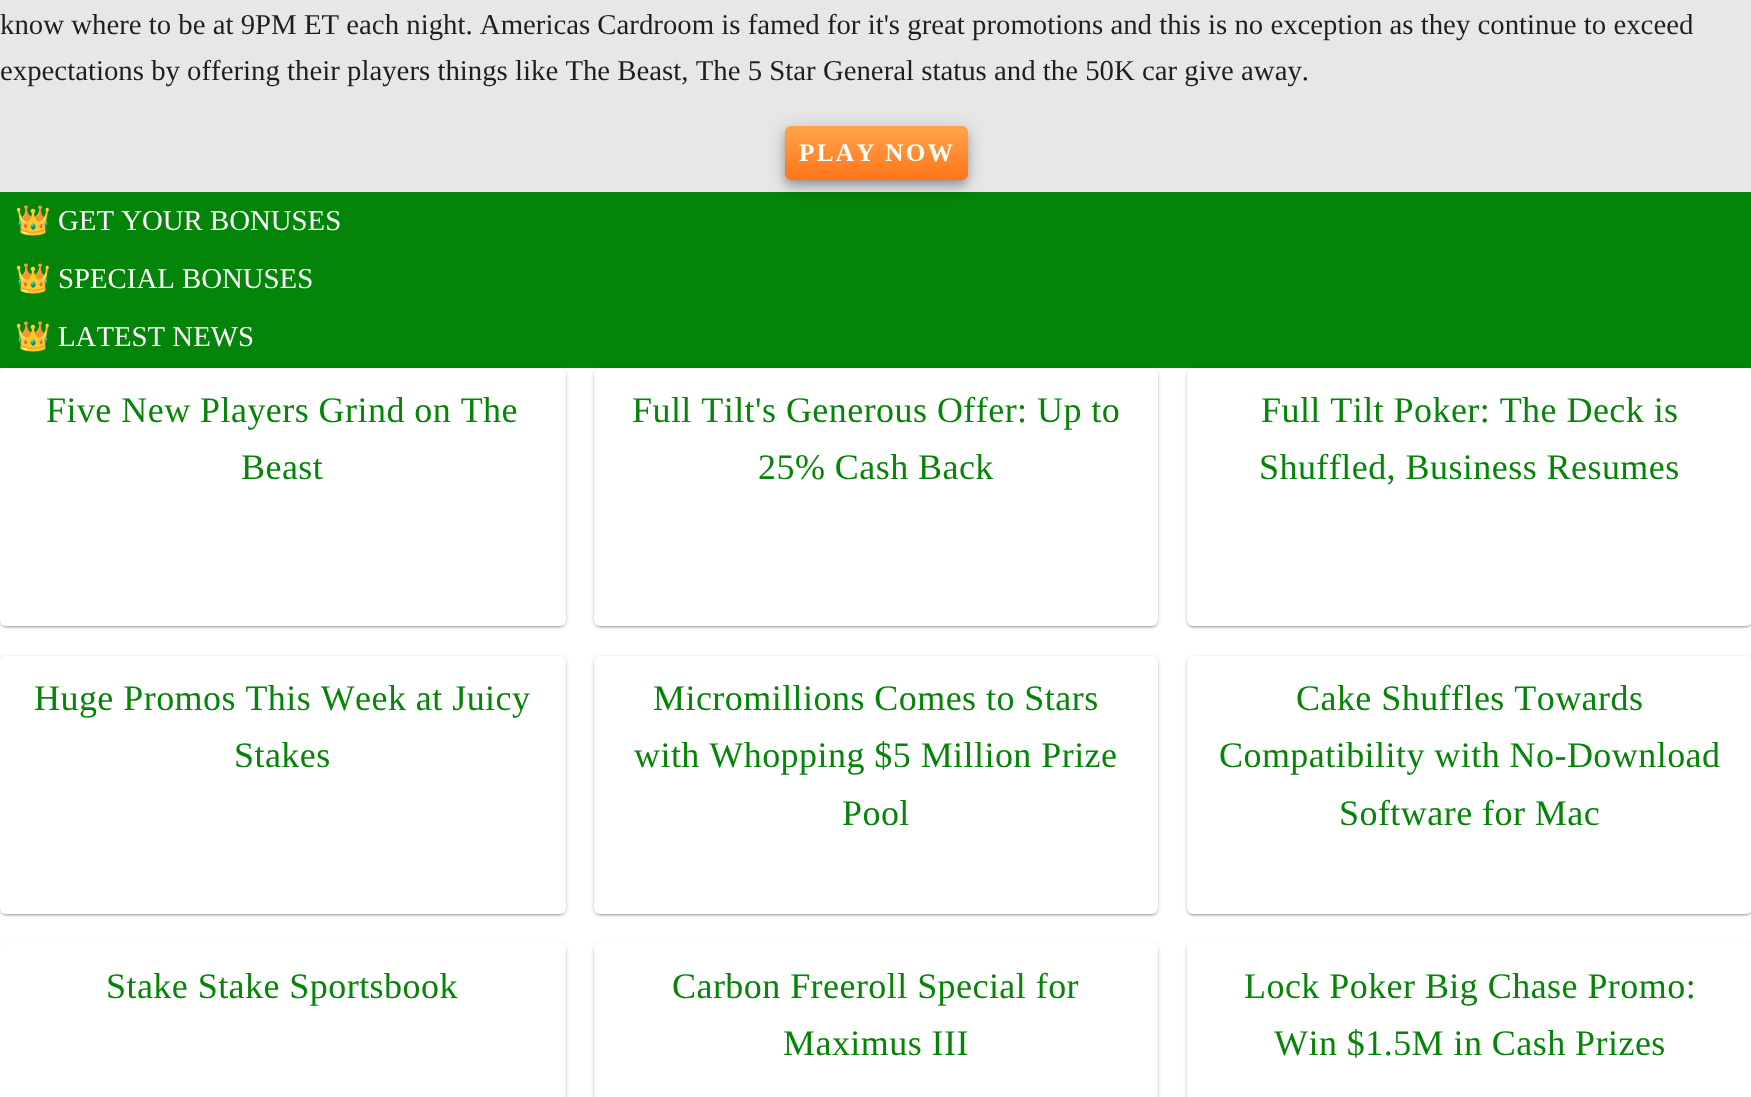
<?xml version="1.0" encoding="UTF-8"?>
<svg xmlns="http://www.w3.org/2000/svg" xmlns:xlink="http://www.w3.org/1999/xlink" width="1751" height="1097">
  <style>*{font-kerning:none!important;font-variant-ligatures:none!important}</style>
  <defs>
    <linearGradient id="g1" gradientUnits="userSpaceOnUse" x1="876" y1="126" x2="876" y2="180"><stop offset="0" stop-color="#ffa44c" /><stop offset="1" stop-color="#ff7519" /></linearGradient>
  </defs>
  <rect width="100%" height="100%" fill="#e7e7e7" />
  <rect y="192" width="1751" height="176" fill="#05840a" />
  <rect x="785" y="128" width="183" height="54" rx="6" fill="#000000" fill-opacity="0.12" filter="blur(10.5px)" />
  <rect x="785" y="134" width="183" height="54" rx="6" fill="#000000" fill-opacity="0.14" filter="blur(6px)" />
  <rect x="786" y="132" width="180" height="51" rx="5" fill="#000000" fill-opacity="0.2" filter="blur(4px)" />
  <rect x="785" y="126" width="183" height="54" rx="6" fill="url(#g1)" />
  <rect y="368" width="1751" height="729" fill="#ffffff" />
  <rect y="369" width="566" height="258" rx="6" fill="#000000" fill-opacity="0.12" filter="blur(2px)" />
  <rect y="369" width="566" height="258" rx="6" fill="#000000" fill-opacity="0.14" filter="blur(1px)" />
  <rect x="2" y="372" width="562" height="255" rx="5" fill="#000000" fill-opacity="0.2" filter="blur(1px)" />
  <rect y="368" width="566" height="258" rx="6" fill="#ffffff" />
  <rect x="594" y="369" width="564" height="258" rx="6" fill="#000000" fill-opacity="0.12" filter="blur(2px)" />
  <rect x="594" y="369" width="564" height="258" rx="6" fill="#000000" fill-opacity="0.14" filter="blur(1px)" />
  <rect x="596" y="372" width="561" height="255" rx="5" fill="#000000" fill-opacity="0.2" filter="blur(1px)" />
  <rect x="594" y="368" width="564" height="258" rx="6" fill="#ffffff" />
  <rect x="1187" y="369" width="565" height="258" rx="6" fill="#000000" fill-opacity="0.12" filter="blur(2px)" />
  <rect x="1187" y="369" width="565" height="258" rx="6" fill="#000000" fill-opacity="0.14" filter="blur(1px)" />
  <rect x="1188" y="372" width="563" height="255" rx="5" fill="#000000" fill-opacity="0.2" filter="blur(1px)" />
  <rect x="1187" y="368" width="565" height="258" rx="6" fill="#ffffff" />
  <rect y="657" width="566" height="258" rx="6" fill="#000000" fill-opacity="0.12" filter="blur(2px)" />
  <rect y="657" width="566" height="258" rx="6" fill="#000000" fill-opacity="0.14" filter="blur(1px)" />
  <rect x="2" y="660" width="562" height="255" rx="5" fill="#000000" fill-opacity="0.2" filter="blur(1px)" />
  <rect y="656" width="566" height="258" rx="6" fill="#ffffff" />
  <rect x="594" y="657" width="564" height="258" rx="6" fill="#000000" fill-opacity="0.12" filter="blur(2px)" />
  <rect x="594" y="657" width="564" height="258" rx="6" fill="#000000" fill-opacity="0.14" filter="blur(1px)" />
  <rect x="596" y="660" width="561" height="255" rx="5" fill="#000000" fill-opacity="0.2" filter="blur(1px)" />
  <rect x="594" y="656" width="564" height="258" rx="6" fill="#ffffff" />
  <rect x="1187" y="657" width="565" height="258" rx="6" fill="#000000" fill-opacity="0.12" filter="blur(2px)" />
  <rect x="1187" y="657" width="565" height="258" rx="6" fill="#000000" fill-opacity="0.14" filter="blur(1px)" />
  <rect x="1188" y="660" width="563" height="255" rx="5" fill="#000000" fill-opacity="0.2" filter="blur(1px)" />
  <rect x="1187" y="656" width="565" height="258" rx="6" fill="#ffffff" />
  <rect y="944" width="566" height="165" rx="6" fill="#000000" fill-opacity="0.12" filter="blur(2px)" />
  <rect y="944" width="566" height="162" rx="6" fill="#000000" fill-opacity="0.14" filter="blur(1px)" />
  <rect y="942" width="566" height="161" rx="6" fill="#ffffff" />
  <rect x="594" y="944" width="564" height="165" rx="6" fill="#000000" fill-opacity="0.12" filter="blur(2px)" />
  <rect x="594" y="944" width="564" height="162" rx="6" fill="#000000" fill-opacity="0.14" filter="blur(1px)" />
  <rect x="594" y="942" width="564" height="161" rx="6" fill="#ffffff" />
  <rect x="1187" y="944" width="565" height="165" rx="6" fill="#000000" fill-opacity="0.12" filter="blur(2px)" />
  <rect x="1187" y="944" width="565" height="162" rx="6" fill="#000000" fill-opacity="0.14" filter="blur(1px)" />
  <rect x="1187" y="942" width="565" height="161" rx="6" fill="#ffffff" />
  <text x="0" y="34" style="font-family: Liberation Serif; font-size: 28.8px; fill: #1e1e1e">know where to be at 9PM ET each night. Americas Cardroom is famed for it's great promotions and this is no exception as they continue to exceed</text>
  <text x="0" y="80" style="font-family: Liberation Serif; font-size: 28.8px; fill: #1e1e1e">expectations by offering their players things like The Beast, The 5 Star General status and the 50K car give away.</text>
  <text x="799" y="161" style="font-family: Liberation Serif; font-size: 25.25px; font-weight: bold; letter-spacing: 2.25px; fill: #ffffff">PLAY NOW</text>
  <text x="15" y="230" style="font-family: Noto Color Emoji; font-size: 28.8px; fill: #ffffff">👑</text>
  <text x="58" y="230" style="font-family: Liberation Serif; font-size: 28.8px; fill: #ffffff">GET YOUR BONUSES</text>
  <text x="15" y="288" style="font-family: Noto Color Emoji; font-size: 28.8px; fill: #ffffff">👑</text>
  <text x="58" y="288" style="font-family: Liberation Serif; font-size: 28.8px; fill: #ffffff">SPECIAL BONUSES</text>
  <text x="15" y="346" style="font-family: Noto Color Emoji; font-size: 28.8px; fill: #ffffff">👑</text>
  <text x="58" y="346" style="font-family: Liberation Serif; font-size: 28.8px; fill: #ffffff">LATEST NEWS</text>
  <text x="46" y="422" style="font-family: Liberation Serif; font-size: 36px; letter-spacing: 0.45px; fill: #068408">Five New Players Grind on The</text>
  <text x="241" y="479" style="font-family: Liberation Serif; font-size: 36px; letter-spacing: 0.45px; fill: #068408">Beast</text>
  <text x="632" y="422" style="font-family: Liberation Serif; font-size: 36px; letter-spacing: 0.45px; fill: #068408">Full Tilt's Generous Offer: Up to</text>
  <text x="758" y="479" style="font-family: Liberation Serif; font-size: 36px; letter-spacing: 0.45px; fill: #068408">25% Cash Back</text>
  <text x="1261" y="422" style="font-family: Liberation Serif; font-size: 36px; letter-spacing: 0.45px; fill: #068408">Full Tilt Poker: The Deck is</text>
  <text x="1259" y="479" style="font-family: Liberation Serif; font-size: 36px; letter-spacing: 0.45px; fill: #068408">Shuffled, Business Resumes</text>
  <text x="34" y="710" style="font-family: Liberation Serif; font-size: 36px; letter-spacing: 0.45px; fill: #068408">Huge Promos This Week at Juicy</text>
  <text x="234" y="767" style="font-family: Liberation Serif; font-size: 36px; letter-spacing: 0.45px; fill: #068408">Stakes</text>
  <text x="653" y="710" style="font-family: Liberation Serif; font-size: 36px; letter-spacing: 0.45px; fill: #068408">Micromillions Comes to Stars</text>
  <text x="634" y="767" style="font-family: Liberation Serif; font-size: 36px; letter-spacing: 0.45px; fill: #068408">with Whopping $5 Million Prize</text>
  <text x="842" y="825" style="font-family: Liberation Serif; font-size: 36px; letter-spacing: 0.45px; fill: #068408">Pool</text>
  <text x="1296" y="710" style="font-family: Liberation Serif; font-size: 36px; letter-spacing: 0.45px; fill: #068408">Cake Shuffles Towards</text>
  <text x="1219" y="767" style="font-family: Liberation Serif; font-size: 36px; letter-spacing: 0.45px; fill: #068408">Compatibility with No-Download</text>
  <text x="1339" y="825" style="font-family: Liberation Serif; font-size: 36px; letter-spacing: 0.45px; fill: #068408">Software for Mac</text>
  <text x="106" y="998" style="font-family: Liberation Serif; font-size: 36px; letter-spacing: 0.45px; fill: #068408">Stake Stake Sportsbook</text>
  <text x="672" y="998" style="font-family: Liberation Serif; font-size: 36px; letter-spacing: 0.45px; fill: #068408">Carbon Freeroll Special for</text>
  <text x="783" y="1055" style="font-family: Liberation Serif; font-size: 36px; letter-spacing: 0.45px; fill: #068408">Maximus III</text>
  <text x="1244" y="998" style="font-family: Liberation Serif; font-size: 36px; letter-spacing: 0.45px; fill: #068408">Lock Poker Big Chase Promo:</text>
  <text x="1274" y="1055" style="font-family: Liberation Serif; font-size: 36px; letter-spacing: 0.45px; fill: #068408">Win $1.5M in Cash Prizes</text>
</svg>
